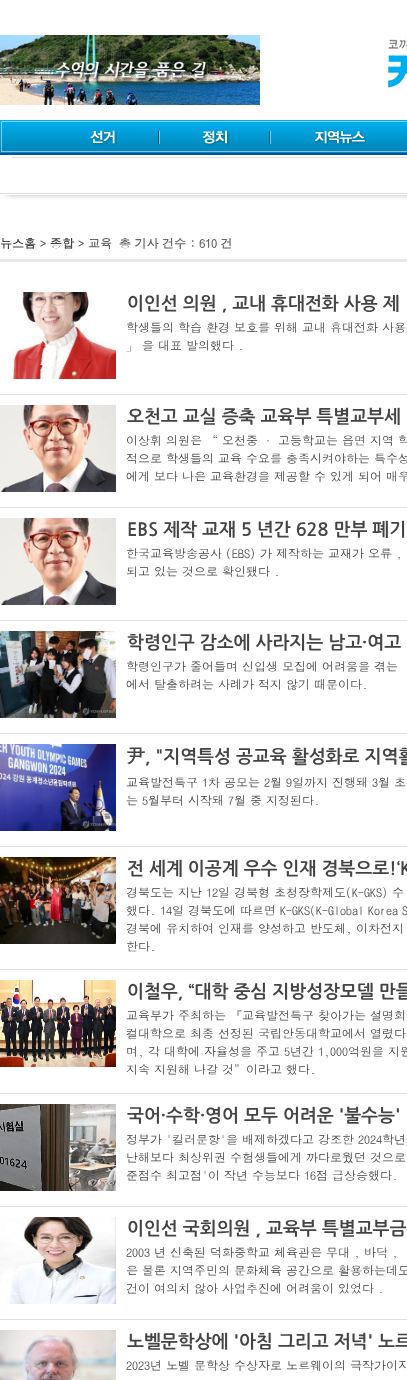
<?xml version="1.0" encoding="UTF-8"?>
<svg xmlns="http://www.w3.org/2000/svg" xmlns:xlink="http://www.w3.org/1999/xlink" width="407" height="1380">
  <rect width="100%" height="100%" fill="#ffffff" />
  <image x="0" y="35" width="260" height="70" xlink:href="image1.png" />
  <image x="388" y="39" width="19" height="49" xlink:href="image2.png" />
  <image x="0" y="120" width="12" height="35" xlink:href="image3.png" />
  <image x="12" y="120" width="395" height="35" xlink:href="image4.png" />
  <image x="90" y="130" width="70" height="16" xlink:href="image5.png" />
  <image x="202" y="130" width="69" height="16" xlink:href="image6.png" />
  <image x="315" y="130" width="52" height="16" xlink:href="image7.png" />
  <rect x="12" y="157" width="395" height="1" fill="#e0e0e0" />
  <image x="0" y="193" width="12" height="7" xlink:href="image8.png" />
  <image x="12" y="193" width="395" height="7" xlink:href="image9.png" />
  <rect y="259" width="407" height="3" fill="#e8e8e8" />
  <rect y="394" width="407" height="1" fill="#dedfde" />
  <image x="9" y="292" width="107" height="87" xlink:href="image10.png" />
  <rect y="507" width="407" height="1" fill="#dedfde" />
  <image x="0" y="405" width="116" height="87" xlink:href="image11.png" />
  <rect y="620" width="407" height="1" fill="#dedfde" />
  <image x="0" y="518" width="116" height="87" xlink:href="image12.png" />
  <rect y="733" width="407" height="1" fill="#dedfde" />
  <image x="0" y="631" width="116" height="87" xlink:href="image13.png" />
  <rect y="846" width="407" height="1" fill="#dedfde" />
  <image x="0" y="744" width="116" height="87" xlink:href="image14.png" />
  <rect y="969" width="407" height="1" fill="#dedfde" />
  <image x="0" y="857" width="116" height="87" xlink:href="image15.png" />
  <rect y="1093" width="407" height="1" fill="#dedfde" />
  <image x="0" y="980" width="116" height="87" xlink:href="image16.png" />
  <rect y="1206" width="407" height="1" fill="#dedfde" />
  <image x="0" y="1104" width="116" height="87" xlink:href="image17.png" />
  <rect y="1319" width="407" height="1" fill="#dedfde" />
  <image x="0" y="1217" width="116" height="87" xlink:href="image18.png" />
  <image x="0" y="1330" width="116" height="50" xlink:href="image19.png" />
  <text x="0" y="248" style="font-family: DotumChe; font-size: 12px; font-weight: bold; fill: #454444">뉴스홈</text>
  <text x="40" y="248" style="font-family: DotumChe; font-size: 12px; font-weight: bold; fill: #666666">&gt;</text>
  <text x="50" y="248" style="font-family: DotumChe; font-size: 12px; font-weight: bold; fill: #454444">종합</text>
  <text x="78" y="248" word-spacing="-2" style="font-family: DotumChe; font-size: 12px; font-weight: bold; fill: #666666">&gt; 교육</text>
  <text x="119" y="248" word-spacing="-2.5" style="font-family: DotumChe; font-size: 12px; font-weight: bold; fill: #666666">총 기사 건수 : 610 건</text>
  <text x="127" y="309" style="font-family: NanumGothic; font-size: 18px; font-weight: bold; fill: #454444">이인선 의원 , 교내 휴대전화 사용 제</text>
  <text x="126" y="332" word-spacing="-2" style="font-family: DotumChe; font-size: 12px; fill: #454444">학생들의 학습 환경 보호를 위해 교내 휴대전화 사용</text>
  <text x="126" y="350" word-spacing="-2" style="font-family: DotumChe; font-size: 12px; fill: #454444">」 을 대표 발의했다 .</text>
  <text x="127" y="422" style="font-family: NanumGothic; font-size: 18px; font-weight: bold; fill: #454444">오천고 교실 증축 교육부 특별교부세</text>
  <text x="126" y="445" word-spacing="-2" style="font-family: DotumChe; font-size: 12px; fill: #454444">이상휘 의원은 “ 오천중 · 고등학교는 읍면 지역 학</text>
  <text x="126" y="463" word-spacing="-2" style="font-family: DotumChe; font-size: 12px; fill: #454444">적으로 학생들의 교육 수요를 충족시켜야하는 특수성</text>
  <text x="126" y="481" word-spacing="-2" style="font-family: DotumChe; font-size: 12px; fill: #454444">에게 보다 나은 교육환경을 제공할 수 있게 되어 매우</text>
  <text x="127" y="535" style="font-family: NanumGothic; font-size: 18px; font-weight: bold; fill: #454444">EBS 제작 교재 5 년간 628 만부 폐기</text>
  <text x="126" y="558" word-spacing="-2" style="font-family: DotumChe; font-size: 12px; fill: #454444">한국교육방송공사 (EBS) 가 제작하는 교재가 오류 ,</text>
  <text x="126" y="576" word-spacing="-2" style="font-family: DotumChe; font-size: 12px; fill: #454444">되고 있는 것으로 확인됐다 .</text>
  <text x="127" y="648" style="font-family: NanumGothic; font-size: 18px; font-weight: bold; fill: #454444">학령인구 감소에 사라지는 남고·여고</text>
  <text x="126" y="671" word-spacing="-2" style="font-family: DotumChe; font-size: 12px; fill: #454444">학령인구가 줄어들며 신입생 모집에 어려움을 겪는</text>
  <text x="126" y="689" word-spacing="-2" style="font-family: DotumChe; font-size: 12px; fill: #454444">에서 탈출하려는 사례가 적지 않기 때문이다.</text>
  <text x="127" y="762" style="font-family: WenQuanYi Zen Hei; font-size: 18px; font-weight: bold; fill: #454444">尹</text>
  <text x="145" y="762" style="font-family: NanumGothic; font-size: 18px; font-weight: bold; fill: #454444">, "지역특성 공교육 활성화로 지역활</text>
  <text x="126" y="787" word-spacing="-2" style="font-family: DotumChe; font-size: 12px; fill: #454444">교육발전특구 1차 공모는 2월 9일까지 진행돼 3월 초</text>
  <text x="126" y="805" word-spacing="-2" style="font-family: DotumChe; font-size: 12px; fill: #454444">는 5월부터 시작돼 7월 중 지정된다.</text>
  <text x="127" y="874" style="font-family: NanumGothic; font-size: 18px; font-weight: bold; fill: #454444">전 세계 이공계 우수 인재 경북으로!‘K</text>
  <text x="126" y="897" word-spacing="-2" style="font-family: DotumChe; font-size: 12px; fill: #454444">경북도는 지난 12일 경북형 초청장학제도(K-GKS) 수</text>
  <text x="126" y="915" style="font-family: DotumChe; font-size: 12px; fill: #454444">했다.</text>
  <text x="160" y="915" word-spacing="-2" style="font-family: DotumChe; font-size: 12px; fill: #454444">14일 경북도에 따르면 K-GKS(K-Global Korea S</text>
  <text x="126" y="933" word-spacing="-2" style="font-family: DotumChe; font-size: 12px; fill: #454444">경북에 유치하여 인재를 양성하고 반도체, 이차전지</text>
  <text x="126" y="951" style="font-family: DotumChe; font-size: 12px; fill: #454444">한다.</text>
  <text x="127" y="997" style="font-family: NanumGothic; font-size: 18px; font-weight: bold; fill: #454444">이철우, “대학 중심 지방성장모델 만들</text>
  <text x="126" y="1020" word-spacing="-2" style="font-family: DotumChe; font-size: 12px; fill: #454444">교육부가 주최하는 『교육발전특구 찾아가는 설명회</text>
  <text x="126" y="1038" word-spacing="-2" style="font-family: DotumChe; font-size: 12px; fill: #454444">컬대학으로 최종 선정된 국립안동대학교에서 열렸다</text>
  <text x="126" y="1056" word-spacing="-2" style="font-family: DotumChe; font-size: 12px; fill: #454444">며, 각 대학에 자율성을 주고 5년간 1,000억원을 지원</text>
  <text x="126" y="1074" word-spacing="-2" style="font-family: DotumChe; font-size: 12px; fill: #454444">지속 지원해 나갈 것”이라고 했다.</text>
  <text x="127" y="1121" style="font-family: NanumGothic; font-size: 18px; font-weight: bold; fill: #454444">국어·수학·영어 모두 어려운 '불수능'</text>
  <text x="126" y="1144" word-spacing="-2" style="font-family: DotumChe; font-size: 12px; fill: #454444">정부가 '킬러문항'을 배제하겠다고 강조한 2024학년</text>
  <text x="126" y="1162" word-spacing="-2" style="font-family: DotumChe; font-size: 12px; fill: #454444">난해보다 최상위권 수험생들에게 까다로웠던 것으로</text>
  <text x="126" y="1180" word-spacing="-2" style="font-family: DotumChe; font-size: 12px; fill: #454444">준점수 최고점'이 작년 수능보다 16점 급상승했다.</text>
  <text x="127" y="1234" style="font-family: NanumGothic; font-size: 18px; font-weight: bold; fill: #454444">이인선 국회의원 , 교육부 특별교부금</text>
  <text x="126" y="1257" word-spacing="-2" style="font-family: DotumChe; font-size: 12px; fill: #454444">2003 년 신축된 덕화중학교 체육관은 무대 , 바닥 ,</text>
  <text x="126" y="1275" word-spacing="-2" style="font-family: DotumChe; font-size: 12px; fill: #454444">은 물론 지역주민의 문화체육 공간으로 활용하는데도</text>
  <text x="126" y="1293" word-spacing="-2" style="font-family: DotumChe; font-size: 12px; fill: #454444">건이 여의치 않아 사업추진에 어려움이 있었다 .</text>
  <text x="127" y="1347" style="font-family: NanumGothic; font-size: 18px; font-weight: bold; fill: #454444">노벨문학상에 '아침 그리고 저녁' 노르</text>
  <text x="126" y="1370" word-spacing="-2" style="font-family: DotumChe; font-size: 12px; fill: #454444">2023년 노벨 문학상 수상자로 노르웨이의 극작가이자</text>
</svg>
